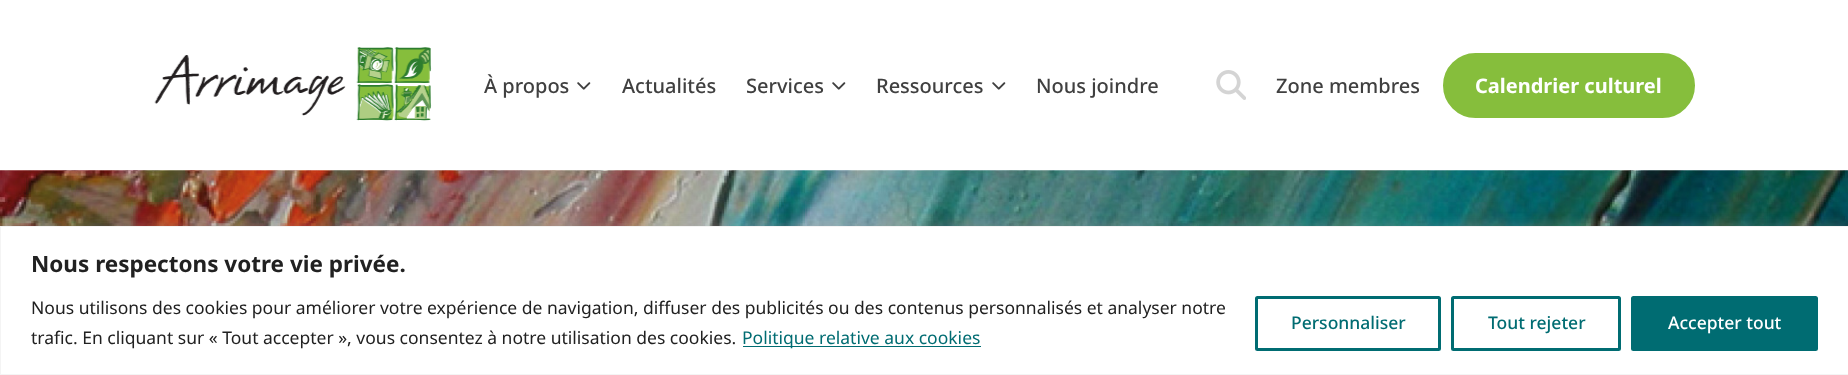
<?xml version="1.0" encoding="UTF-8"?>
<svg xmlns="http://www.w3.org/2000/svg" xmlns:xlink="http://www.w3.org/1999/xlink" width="1848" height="375">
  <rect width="100%" height="100%" fill="#ffffff" />
  <image x="154" y="47" width="278" height="74" xlink:href="image1.png" />
  <image x="577" y="82" width="14" height="8" xlink:href="image2.png" />
  <image x="832" y="82" width="14" height="8" xlink:href="image2.png" />
  <image x="992" y="82" width="14" height="8" xlink:href="image2.png" />
  <image x="1216" y="70" width="30" height="30" xlink:href="image3.png" />
  <rect x="1444.5" y="54.5" width="249" height="62" rx="31" fill="#86be3c" stroke="#86be3c" stroke-width="3" />
  <image x="0" y="170" width="1848" height="56" xlink:href="image4.png" />
  <rect y="225" width="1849" height="149" fill="#acabab" fill-opacity="0.3" filter="blur(6px)" />
  <rect x="0.5" y="226.5" width="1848" height="148" fill="#ffffff" stroke="#f4f4f4" />
  <rect x="743" y="346" width="238" height="1" fill="#006c72" />
  <rect x="1256.5" y="297.5" width="183" height="52" rx="1" fill="none" stroke="#006c72" stroke-width="3" />
  <rect x="1452.5" y="297.5" width="167" height="52" rx="1" fill="none" stroke="#006c72" stroke-width="3" />
  <rect x="1632.5" y="297.5" width="184" height="52" rx="1" fill="#006c72" stroke="#006c72" stroke-width="3" />
  <text x="484" y="93" style="font-family: Noto Sans; font-size: 20px; font-weight: 500; fill: #404040">À propos</text>
  <text x="622" y="93" style="font-family: Noto Sans; font-size: 20px; font-weight: 500; fill: #404040">Actualités</text>
  <text x="746" y="93" style="font-family: Noto Sans; font-size: 20px; font-weight: 500; fill: #404040">Services</text>
  <text x="876" y="93" style="font-family: Noto Sans; font-size: 20px; font-weight: 500; fill: #404040">Ressources</text>
  <text x="1036" y="93" style="font-family: Noto Sans; font-size: 20px; font-weight: 500; fill: #404040">Nous joindre</text>
  <text x="1276" y="93" style="font-family: Noto Sans; font-size: 20px; font-weight: 500; fill: #404040">Zone membres</text>
  <text x="1475" y="93" style="font-family: Noto Sans; font-size: 20px; font-weight: bold; fill: #ffffff">Calendrier culturel</text>
  <text x="31" y="272" style="font-family: Noto Sans; font-size: 22.5px; font-weight: bold; fill: #212121">Nous respectons votre vie privée.</text>
  <text x="31" y="314" style="font-family: Noto Sans; font-size: 17.5px; fill: #212121">Nous utilisons des cookies pour améliorer votre expérience de navigation, diffuser des publicités ou des contenus personnalisés et analyser notre</text>
  <text x="31" y="344" style="font-family: Noto Sans; font-size: 17.5px; fill: #212121">trafic. En cliquant sur « Tout accepter », vous consentez à notre utilisation des cookies.</text>
  <text x="742" y="344" style="font-family: Noto Sans; font-size: 17.5px; fill: #006c72">Politique relative aux cookies</text>
  <text x="1291" y="329" style="font-family: Noto Sans; font-size: 17.5px; font-weight: 500; fill: #006c72">Personnaliser</text>
  <text x="1488" y="329" style="font-family: Noto Sans; font-size: 17.5px; font-weight: 500; fill: #006c72">Tout rejeter</text>
  <text x="1668" y="329" style="font-family: Noto Sans; font-size: 17.5px; font-weight: 500; fill: #ffffff">Accepter tout</text>
</svg>
